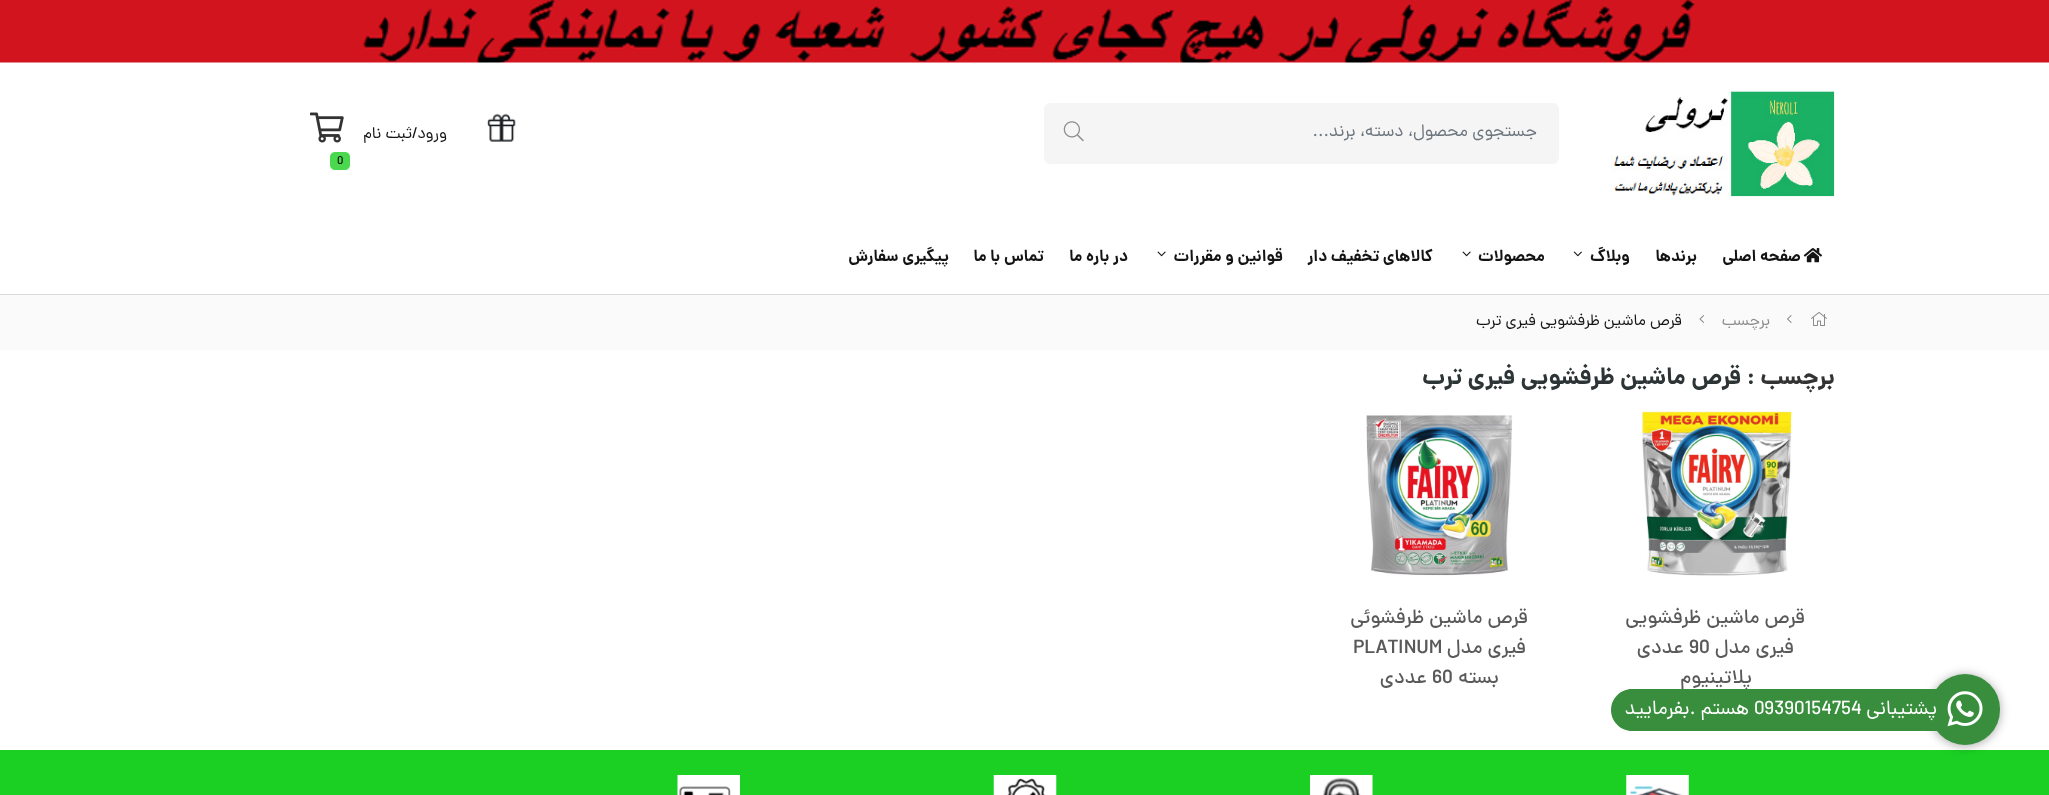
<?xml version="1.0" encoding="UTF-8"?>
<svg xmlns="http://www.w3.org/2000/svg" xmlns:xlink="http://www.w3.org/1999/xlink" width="2049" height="795">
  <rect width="100%" height="100%" fill="#ffffff" />
  <image x="0" y="0" width="2049" height="63" xlink:href="image1.png" />
  <image x="1611" y="90" width="224" height="110" xlink:href="image2.png" />
  <rect x="1044" y="103" width="515" height="61" rx="6" fill="#f5f5f5" />
  <image x="1063" y="121" width="21" height="21" xlink:href="image3.png" />
  <image x="487" y="113" width="29" height="29" xlink:href="image4.png" />
  <image x="310" y="112" width="34" height="31" xlink:href="image5.png" />
  <rect x="329.5" y="151.5" width="21" height="19" rx="5.5" fill="#49d84e" stroke="#ffffff" />
  <rect y="294" width="2049" height="1" fill="#d9d9d9" />
  <image x="1803" y="248" width="19" height="15" xlink:href="image6.png" />
  <image x="1573" y="251" width="9" height="6" xlink:href="image7.png" />
  <image x="1462" y="251" width="9" height="6" xlink:href="image8.png" />
  <image x="1157" y="251" width="9" height="6" xlink:href="image8.png" />
  <rect y="295" width="2049" height="55" fill="#fafafa" />
  <image x="1811" y="312" width="16" height="14" xlink:href="image9.png" />
  <image x="1787" y="315" width="5" height="8" xlink:href="image10.png" />
  <image x="1699" y="315" width="5" height="8" xlink:href="image11.png" />
  <image x="1641" y="411" width="151" height="165" xlink:href="image12.png" />
  <image x="1366" y="415" width="147" height="161" xlink:href="image13.png" />
  <rect y="750" width="2049" height="45" fill="#1cd023" />
  <image x="1626" y="775" width="63" height="20" xlink:href="image14.png" />
  <image x="1310" y="775" width="63" height="20" xlink:href="image15.png" />
  <image x="993" y="775" width="64" height="20" xlink:href="image16.png" />
  <image x="677" y="775" width="63" height="20" xlink:href="image17.png" />
  <rect x="1930" y="675" width="70" height="71" rx="35" fill="#000000" fill-opacity="0.15" filter="blur(6px)" />
  <rect x="1930" y="675" width="70" height="71" rx="35" fill="#000000" fill-opacity="0.2" filter="blur(4px)" />
  <rect x="1930" y="674" width="70" height="71" rx="35" fill="#388e3c" />
  <image x="1947" y="691" width="36" height="36" xlink:href="image18.png" />
  <text x="1537" y="136" style="font-family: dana; font-size: 17.5px; direction: rtl; fill: #6c757d">جستجوی محصول، دسته، برند...</text>
  <text x="447" y="138" style="font-family: dana; font-size: 16.25px; direction: rtl; fill: #141414">ورود</text>
  <text x="412" y="138" style="font-family: dana; font-size: 16.25px; fill: #141414">/</text>
  <text x="412" y="138" style="font-family: dana; font-size: 16.25px; direction: rtl; fill: #141414">ثبت نام</text>
  <text x="337" y="164" style="font-family: dana; font-size: 12px; fill: #000000">0</text>
  <text x="1801" y="261" style="font-family: dana; font-size: 16.25px; font-weight: bold; direction: rtl; fill: #141414">صفحه اصلی</text>
  <text x="1697" y="261" style="font-family: dana; font-size: 16.25px; font-weight: bold; direction: rtl; fill: #141414">برندها</text>
  <text x="1630" y="261" style="font-family: dana; font-size: 16.25px; font-weight: bold; direction: rtl; fill: #141414">وبلاگ</text>
  <text x="1545" y="261" style="font-family: dana; font-size: 16.25px; font-weight: bold; direction: rtl; fill: #141414">محصولات</text>
  <text x="1433" y="261" style="font-family: dana; font-size: 16.25px; font-weight: bold; direction: rtl; fill: #141414">کالاهای تخفیف دار</text>
  <text x="1283" y="261" style="font-family: dana; font-size: 16.25px; font-weight: bold; direction: rtl; fill: #141414">قوانین و مقررات</text>
  <text x="1128" y="261" style="font-family: dana; font-size: 16.25px; font-weight: bold; direction: rtl; fill: #141414">در باره ما</text>
  <text x="1044" y="261" style="font-family: dana; font-size: 16.25px; font-weight: bold; direction: rtl; fill: #141414">تماس با ما</text>
  <text x="949" y="261" style="font-family: dana; font-size: 16.25px; font-weight: bold; direction: rtl; fill: #141414">پیگیری سفارش</text>
  <text x="1770" y="325" style="font-family: dana; font-size: 16px; direction: rtl; fill: #8c8c8c">برچسب</text>
  <text x="1682" y="325" style="font-family: dana; font-size: 16px; direction: rtl; fill: #141414">قرص ماشین ظرفشویی فیری ترب</text>
  <text x="1835" y="384" style="font-family: dana; font-size: 24px; font-weight: bold; direction: rtl; fill: #333333">برچسب</text>
  <text x="1755" y="384" style="font-family: dana; font-size: 24px; font-weight: bold; direction: rtl; fill: #2d3436">: قرص ماشین ظرفشویی فیری ترب</text>
  <text x="1805" y="623" style="font-family: dana; font-size: 20px; font-weight: 500; direction: rtl; fill: #595959">قرص ماشین ظرفشویی</text>
  <text x="1794" y="653" style="font-family: dana; font-size: 20px; font-weight: 500; direction: rtl; fill: #595959">فیری مدل</text>
  <text x="1689" y="653" style="font-family: dana; font-size: 20px; font-weight: 500; fill: #595959">90</text>
  <text x="1684" y="653" style="font-family: dana; font-size: 20px; font-weight: 500; direction: rtl; fill: #595959">عددی</text>
  <text x="1752" y="683" style="font-family: dana; font-size: 20px; font-weight: 500; direction: rtl; fill: #595959">پلاتینیوم</text>
  <text x="1528" y="623" style="font-family: dana; font-size: 20px; font-weight: 500; direction: rtl; fill: #595959">قرص ماشین ظرفشوئی</text>
  <text x="1526" y="653" style="font-family: dana; font-size: 20px; font-weight: 500; direction: rtl; fill: #595959">فیری مدل</text>
  <text x="1353" y="653" style="font-family: dana; font-size: 20px; font-weight: 500; fill: #595959">PLATINUM</text>
  <text x="1499" y="683" style="font-family: dana; font-size: 20px; font-weight: 500; direction: rtl; fill: #595959">بسته</text>
  <text x="1432" y="683" style="font-family: dana; font-size: 20px; font-weight: 500; fill: #595959">60</text>
  <text x="1427" y="683" style="font-family: dana; font-size: 20px; font-weight: 500; direction: rtl; fill: #595959">عددی</text>
  <path d="M 1632 689 h 306 v 42 h -306 c -11.5 0 -21 -9.5 -21 -21 c 0 -11.5 9.5 -21 21 -21 z" fill="#388e3c" />
  <text x="1937" y="714" style="font-family: dana; font-size: 20px; direction: rtl; fill: #ffffff">پشتیبانی</text>
  <text x="1754" y="714" style="font-family: dana; font-size: 20px; fill: #ffffff">09390154754</text>
  <text x="1749" y="714" style="font-family: dana; font-size: 20px; direction: rtl; fill: #ffffff">هستم .بفرمایید</text>
</svg>
